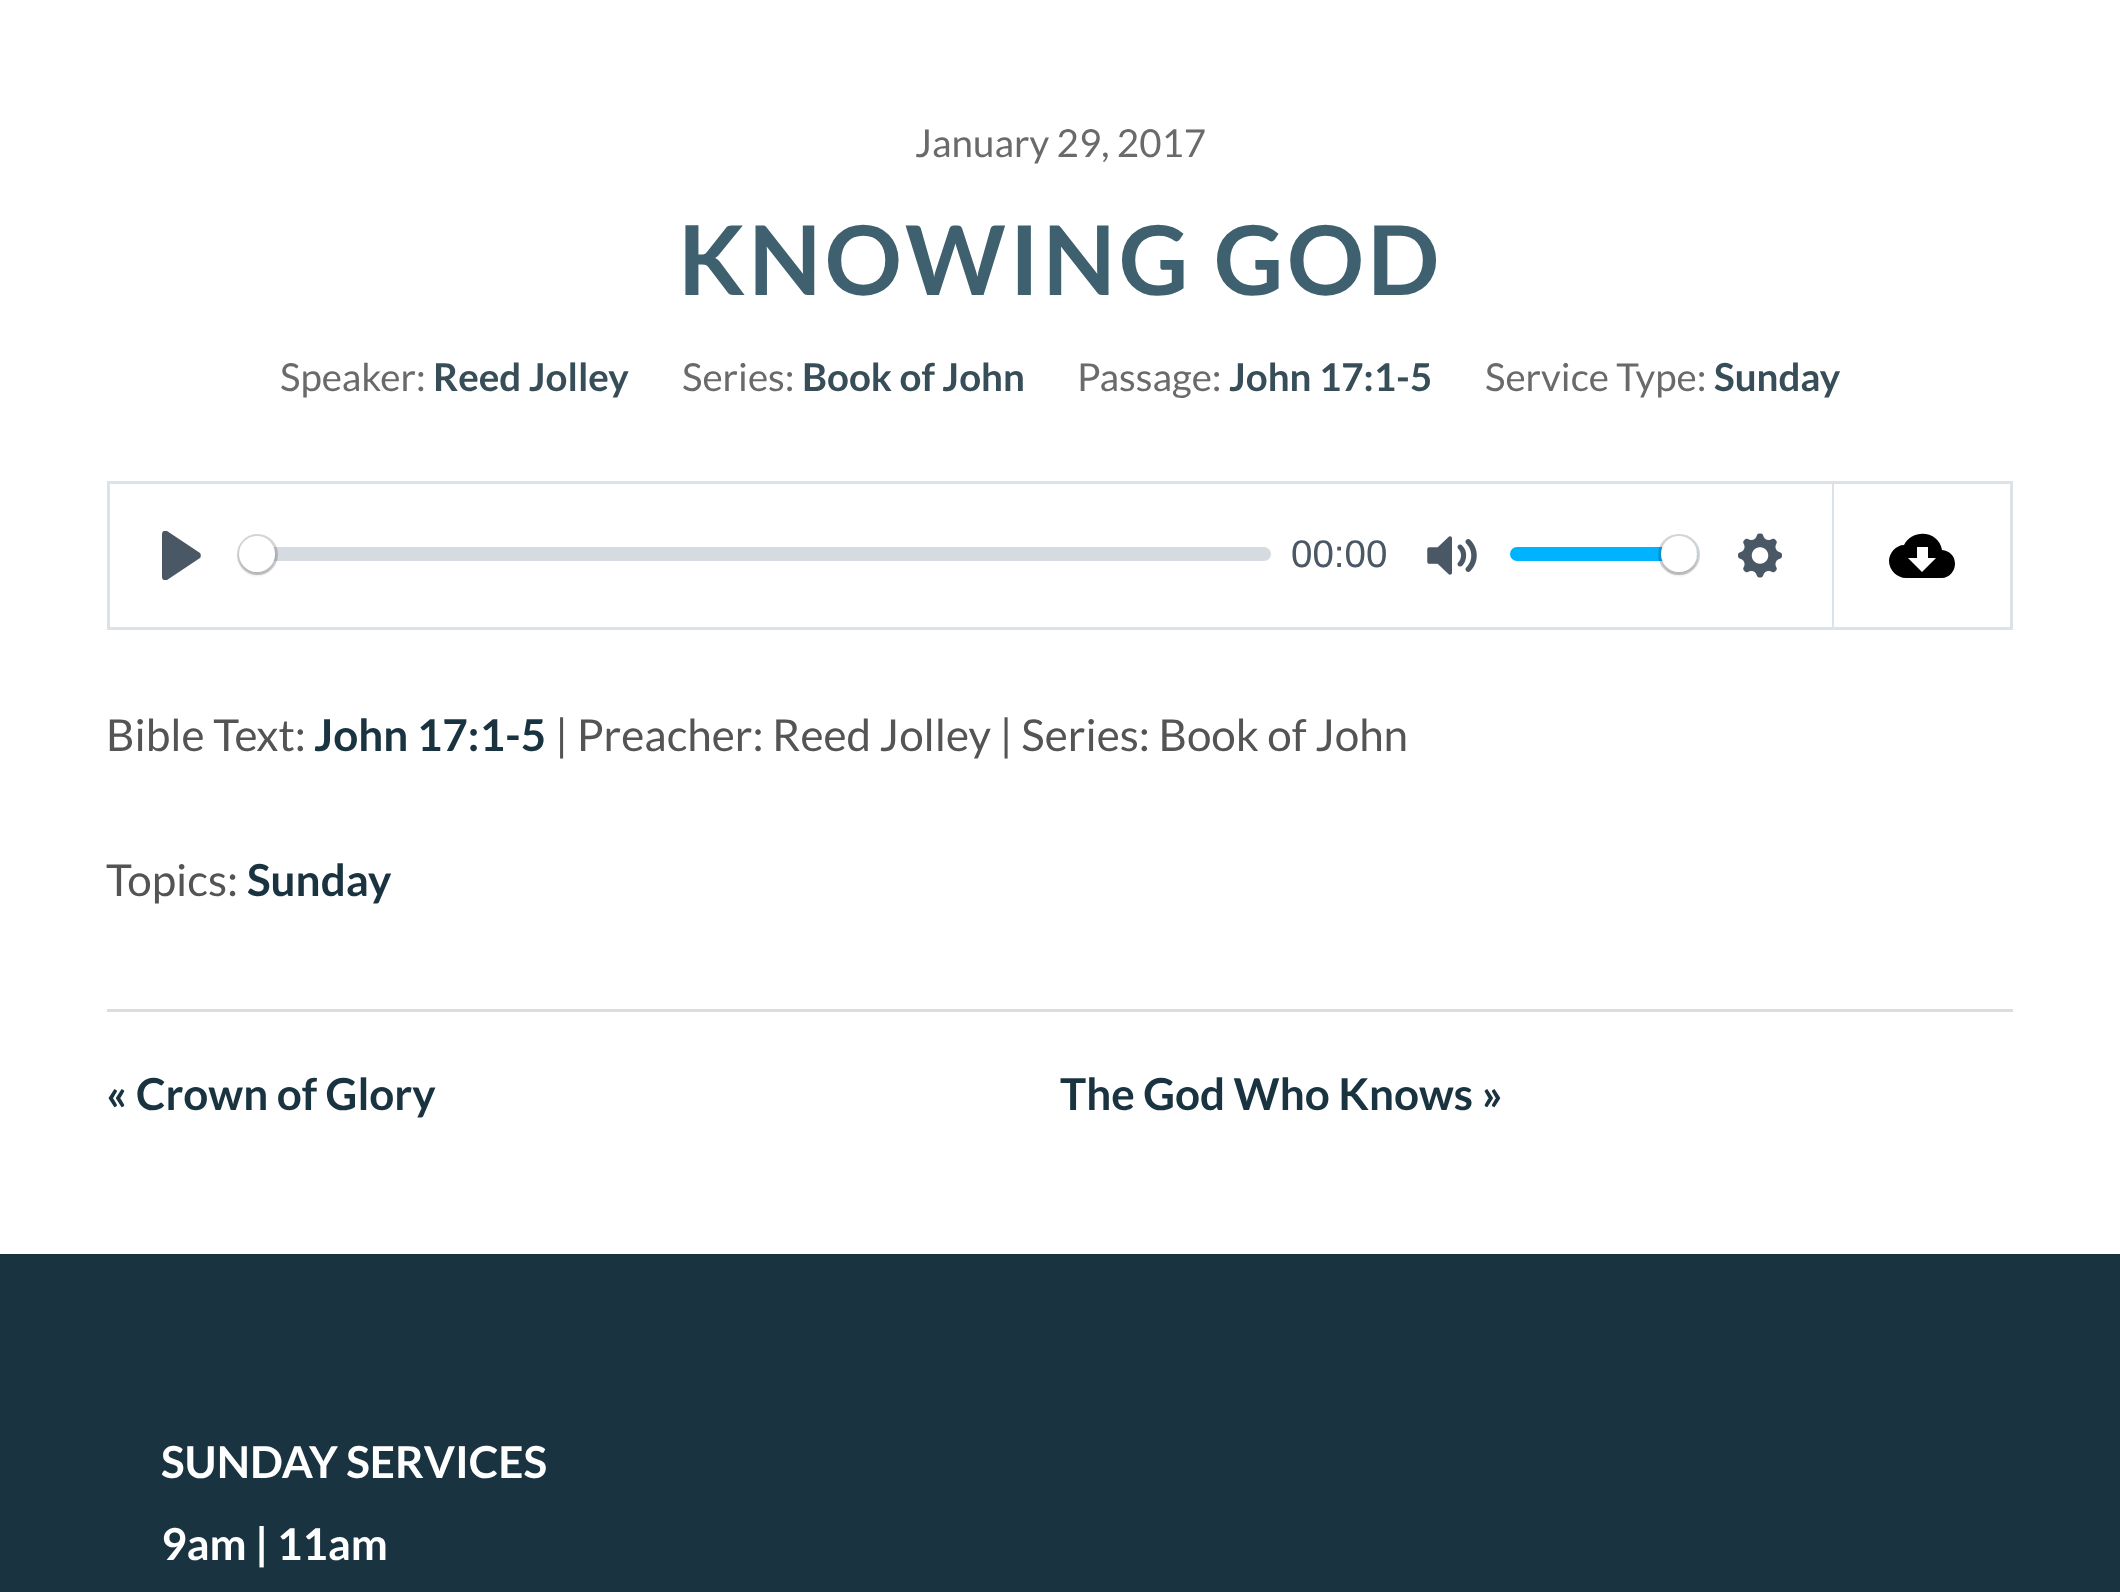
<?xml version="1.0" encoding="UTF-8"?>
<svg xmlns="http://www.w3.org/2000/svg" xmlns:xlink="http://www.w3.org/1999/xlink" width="2120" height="1592">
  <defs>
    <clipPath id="clip1"><rect x="157" y="531" width="49" height="49" /></clipPath>
  </defs>
  <rect width="100%" height="100%" fill="#ffffff" />
  <rect x="108.5" y="482.5" width="1724" height="146" fill="none" stroke="#dbe3e8" stroke-width="3" />
  <rect x="1831" y="484" width="1" height="143" fill="#ffffff" />
  <g clip-path="url(#clip1)">
    <path d="M 200 553 l -33 -22 c -2 -1 -5 0 -5 3 v 43 c 0 3 3 4 5 3 l 33 -22 c 1 -1 1 -4 0 -5 z" fill="#4a5764" />
  </g>
  <rect x="239" y="547" width="1032" height="14" rx="7" fill="#c1c9d1" fill-opacity="0.66" />
  <circle cx="257.5" cy="554.5" r="19" fill="none" stroke="#23292f" stroke-opacity="0.2" stroke-width="3" />
  <rect x="239" y="539" width="36" height="36" rx="18" fill="#000000" fill-opacity="0.15" filter="blur(1.5px)" />
  <circle cx="257" cy="554" r="18" fill="#ffffff" />
  <image x="1427" y="536" width="50" height="39" xlink:href="image1.png" />
  <rect x="1510" y="547" width="187" height="14" rx="7" fill="#00b3ff" />
  <rect x="1659.5" y="535.5" width="39" height="38" rx="19" fill="none" stroke="#23292f" stroke-opacity="0.2" stroke-width="3" />
  <rect x="1661" y="539" width="36" height="36" rx="18" fill="#000000" fill-opacity="0.15" filter="blur(1.5px)" />
  <circle cx="1679" cy="554" r="18" fill="#ffffff" />
  <image x="1738" y="533" width="44" height="45" xlink:href="image2.png" />
  <rect x="1834" y="481" width="179" height="3" fill="#dbe3e8" />
  <rect x="2010" y="481" width="3" height="149" fill="#dbe3e8" />
  <rect x="1834" y="627" width="179" height="3" fill="#dbe3e8" />
  <path d="M 1942 550 c -3 -19 -29 -22 -38 -5 c -8 0 -15 8 -15 16 c 0 9 8 17 17 17 h 36 c 7 0 13 -7 13 -14 c 0 -8 -5 -13 -13 -14 z m -6 8 l -14 14 l -14 -14 h 9 v -11 h 11 v 11 z" fill="#000000" />
  <rect x="107" y="1009" width="1906" height="3" fill="#dddddd" />
  <rect y="1254" width="2120" height="338" fill="#193340" />
  <text x="915" y="157" style="font-family: Lato; font-size: 38.5px; fill: #6a6a6a">January 29, 2017</text>
  <text x="678" y="295" style="font-family: Lato; font-size: 96.25px; font-weight: bold; letter-spacing: 3.4px; fill: #3e606f">KNOWING GOD</text>
  <text x="280" y="391" style="font-family: Lato; font-size: 38.5px; fill: #6a6a6a">Speaker:</text>
  <text x="433" y="391" style="font-family: Lato; font-size: 38.5px; font-weight: bold; fill: #374e59">Reed Jolley</text>
  <text x="682" y="391" style="font-family: Lato; font-size: 38.5px; fill: #6a6a6a">Series:</text>
  <text x="802" y="391" style="font-family: Lato; font-size: 38.5px; font-weight: bold; fill: #374e59">Book of John</text>
  <text x="1077" y="391" style="font-family: Lato; font-size: 38.5px; fill: #6a6a6a">Passage:</text>
  <text x="1229" y="391" style="font-family: Lato; font-size: 38.5px; font-weight: bold; fill: #374e59">John 17:1-5</text>
  <text x="1485" y="391" style="font-family: Lato; font-size: 38.5px; fill: #6a6a6a">Service Type:</text>
  <text x="1714" y="391" style="font-family: Lato; font-size: 38.5px; font-weight: bold; fill: #374e59">Sunday</text>
  <text x="1291" y="567" style="font-family: Liberation Sans; font-size: 38.5px; fill: #4a5764">00:00</text>
  <text x="106" y="751" style="font-family: Lato; font-size: 44px; fill: #545454">Bible Text:</text>
  <text x="314" y="751" style="font-family: Lato; font-size: 44px; font-weight: bold; fill: #193340">John 17:1-5</text>
  <text x="555" y="751" style="font-family: Lato; font-size: 44px; fill: #545454">| Preacher: Reed Jolley | Series: Book of John</text>
  <text x="106" y="896" style="font-family: Lato; font-size: 44px; fill: #545454">Topics:</text>
  <text x="247" y="896" style="font-family: Lato; font-size: 44px; font-weight: bold; fill: #193340">Sunday</text>
  <text x="106" y="1110" style="font-family: Lato; font-size: 44px; font-weight: bold; fill: #193340">« Crown of Glory</text>
  <text x="1060" y="1110" style="font-family: Lato; font-size: 44px; font-weight: bold; fill: #193340">The God Who Knows »</text>
  <text x="161" y="1478" style="font-family: Lato; font-size: 44px; font-weight: bold; fill: #ffffff">SUNDAY SERVICES</text>
  <text x="161" y="1560" style="font-family: Lato; font-size: 44px; font-weight: bold; fill: #ffffff">9am | 11am</text>
</svg>
